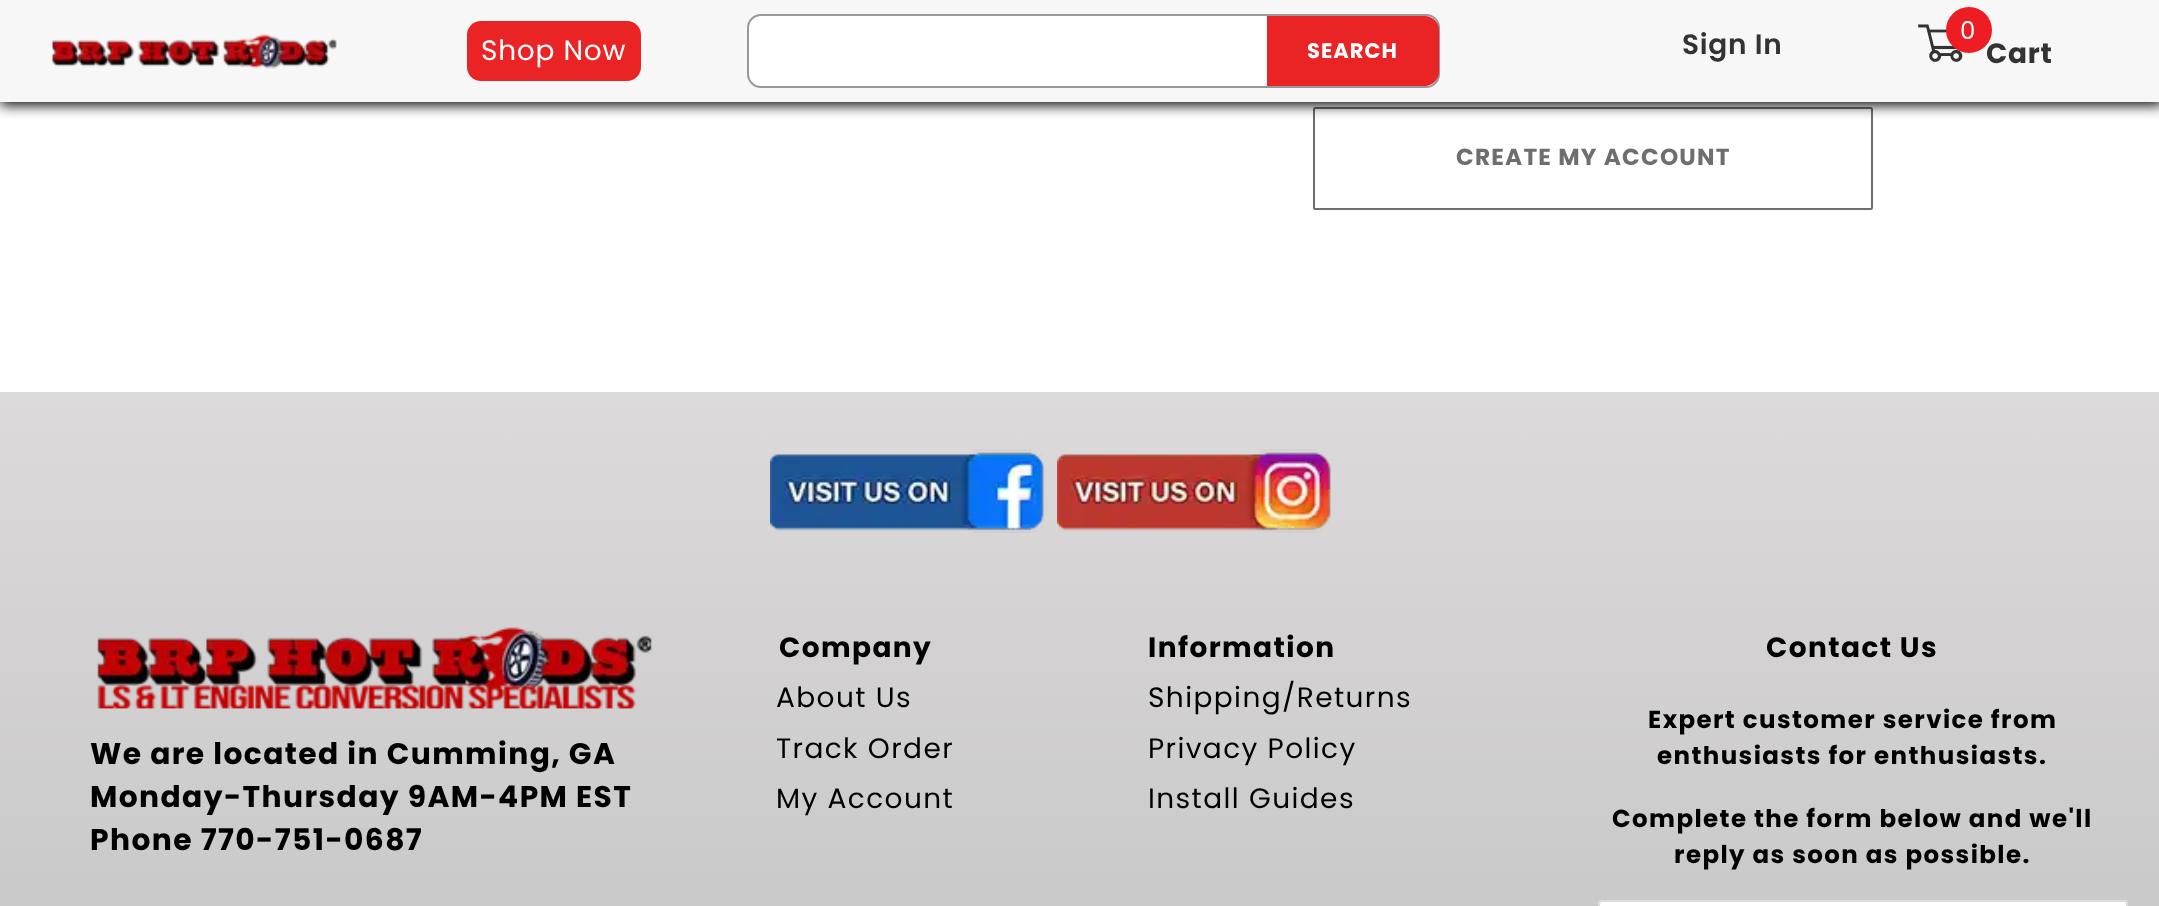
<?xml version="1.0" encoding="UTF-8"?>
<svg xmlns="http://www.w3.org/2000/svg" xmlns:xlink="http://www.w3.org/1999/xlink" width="2159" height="906">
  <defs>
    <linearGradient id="g1" gradientUnits="userSpaceOnUse" x1="1080" y1="392" x2="1080" y2="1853"><stop offset="0" stop-color="#dcdadb" /><stop offset="1" stop-color="#aaaaaa" /></linearGradient>
  </defs>
  <rect width="100%" height="100%" fill="#ffffff" />
  <rect x="1314" y="108" width="558" height="101" rx="1.5" fill="none" stroke="#6e6e6e" stroke-width="2" />
  <rect width="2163" height="105" fill="#000000" filter="blur(7px)" />
  <rect width="2159" height="102" fill="#f7f7f7" />
  <image x="52" y="34" width="285" height="35" xlink:href="image1.png" />
  <rect x="467" y="21" width="174" height="60" rx="14" fill="#ea2425" />
  <rect x="748" y="15" width="691" height="72" rx="13" fill="#ffffff" stroke="#999999" stroke-width="2" />
  <path d="M 1267 16 h 158 c 7.5 0 14 6.5 14 14 v 42 c 0 7.5 -6.5 14 -14 14 h -158 z" fill="#ea2425" />
  <image x="1918" y="24" width="45" height="38" xlink:href="image2.png" />
  <rect y="392" width="2159" height="514" fill="url(#g1)" />
  <image x="770" y="449" width="275" height="84" xlink:href="image3.png" />
  <image x="1057" y="449" width="274" height="84" xlink:href="image4.png" />
  <image x="97" y="627" width="555" height="82" xlink:href="image5.png" />
  <rect x="1598" y="900" width="530" height="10" rx="4" fill="#ffffff" />
  <rect x="1599" y="901" width="528" height="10" rx="3" fill="none" stroke="#cdcdcd" stroke-opacity="0.7" stroke-width="2" />
  <text x="481" y="60" style="font-family: Poppins; font-size: 28px; letter-spacing: 0.75px; fill: #ffffff">Shop Now</text>
  <text x="1307" y="58" style="font-family: Poppins; font-size: 21px; font-weight: bold; letter-spacing: 1px; fill: #ffffff">SEARCH</text>
  <text x="1682" y="54" style="font-family: Poppins; font-size: 28px; font-weight: 600; letter-spacing: 0.75px; fill: #333333">Sign In</text>
  <text x="1986" y="63" style="font-family: Poppins; font-size: 28px; font-weight: bold; letter-spacing: 0.75px; fill: #333333">Cart</text>
  <circle cx="1969" cy="30" r="22" fill="#ed1d23" stroke="#ed1d23" stroke-width="2" />
  <text x="1960" y="39" style="font-family: Poppins; font-size: 24.5px; letter-spacing: 0.75px; fill: #ffffff">0</text>
  <text x="1456" y="165" style="font-family: Poppins; font-size: 23.25px; font-weight: bold; letter-spacing: 1.2px; fill: #6e6e6e">CREATE MY ACCOUNT</text>
  <text x="90" y="764" style="font-family: Poppins; font-size: 29.75px; font-weight: bold; letter-spacing: 1.4px; fill: #000000">We are located in Cumming, GA</text>
  <text x="90" y="807" style="font-family: Poppins; font-size: 29.75px; font-weight: bold; letter-spacing: 1.4px; fill: #000000">Monday-Thursday 9AM-4PM EST</text>
  <text x="90" y="850" style="font-family: Poppins; font-size: 29.75px; font-weight: bold; letter-spacing: 1.4px; fill: #000000">Phone 770-751-0687</text>
  <text x="779" y="657" style="font-family: Poppins; font-size: 28px; font-weight: bold; letter-spacing: 1.4px; fill: #000000">Company</text>
  <text x="776" y="707" style="font-family: Poppins; font-size: 28px; letter-spacing: 1.4px; fill: #000000">About Us</text>
  <text x="776" y="758" style="font-family: Poppins; font-size: 28px; letter-spacing: 1.4px; fill: #000000">Track Order</text>
  <text x="776" y="808" style="font-family: Poppins; font-size: 28px; letter-spacing: 1.4px; fill: #000000">My Account</text>
  <text x="1148" y="657" style="font-family: Poppins; font-size: 28px; font-weight: bold; letter-spacing: 1.4px; fill: #000000">Information</text>
  <text x="1148" y="707" style="font-family: Poppins; font-size: 28px; letter-spacing: 1.4px; fill: #000000">Shipping/Returns</text>
  <text x="1148" y="758" style="font-family: Poppins; font-size: 28px; letter-spacing: 1.4px; fill: #000000">Privacy Policy</text>
  <text x="1148" y="808" style="font-family: Poppins; font-size: 28px; letter-spacing: 1.4px; fill: #000000">Install Guides</text>
  <text x="1766" y="657" style="font-family: Poppins; font-size: 28px; font-weight: bold; letter-spacing: 1.4px; fill: #000000">Contact Us</text>
  <text x="1648" y="728" style="font-family: Poppins; font-size: 24.5px; font-weight: bold; letter-spacing: 1.4px; fill: #000000">Expert customer service from</text>
  <text x="1657" y="764" style="font-family: Poppins; font-size: 24.5px; font-weight: bold; letter-spacing: 1.4px; fill: #000000">enthusiasts for enthusiasts.</text>
  <text x="1612" y="827" style="font-family: Poppins; font-size: 24.5px; font-weight: bold; letter-spacing: 1.4px; fill: #000000">Complete the form below and we'll</text>
  <text x="1674" y="863" style="font-family: Poppins; font-size: 24.5px; font-weight: bold; letter-spacing: 1.4px; fill: #000000">reply as soon as possible.</text>
</svg>
